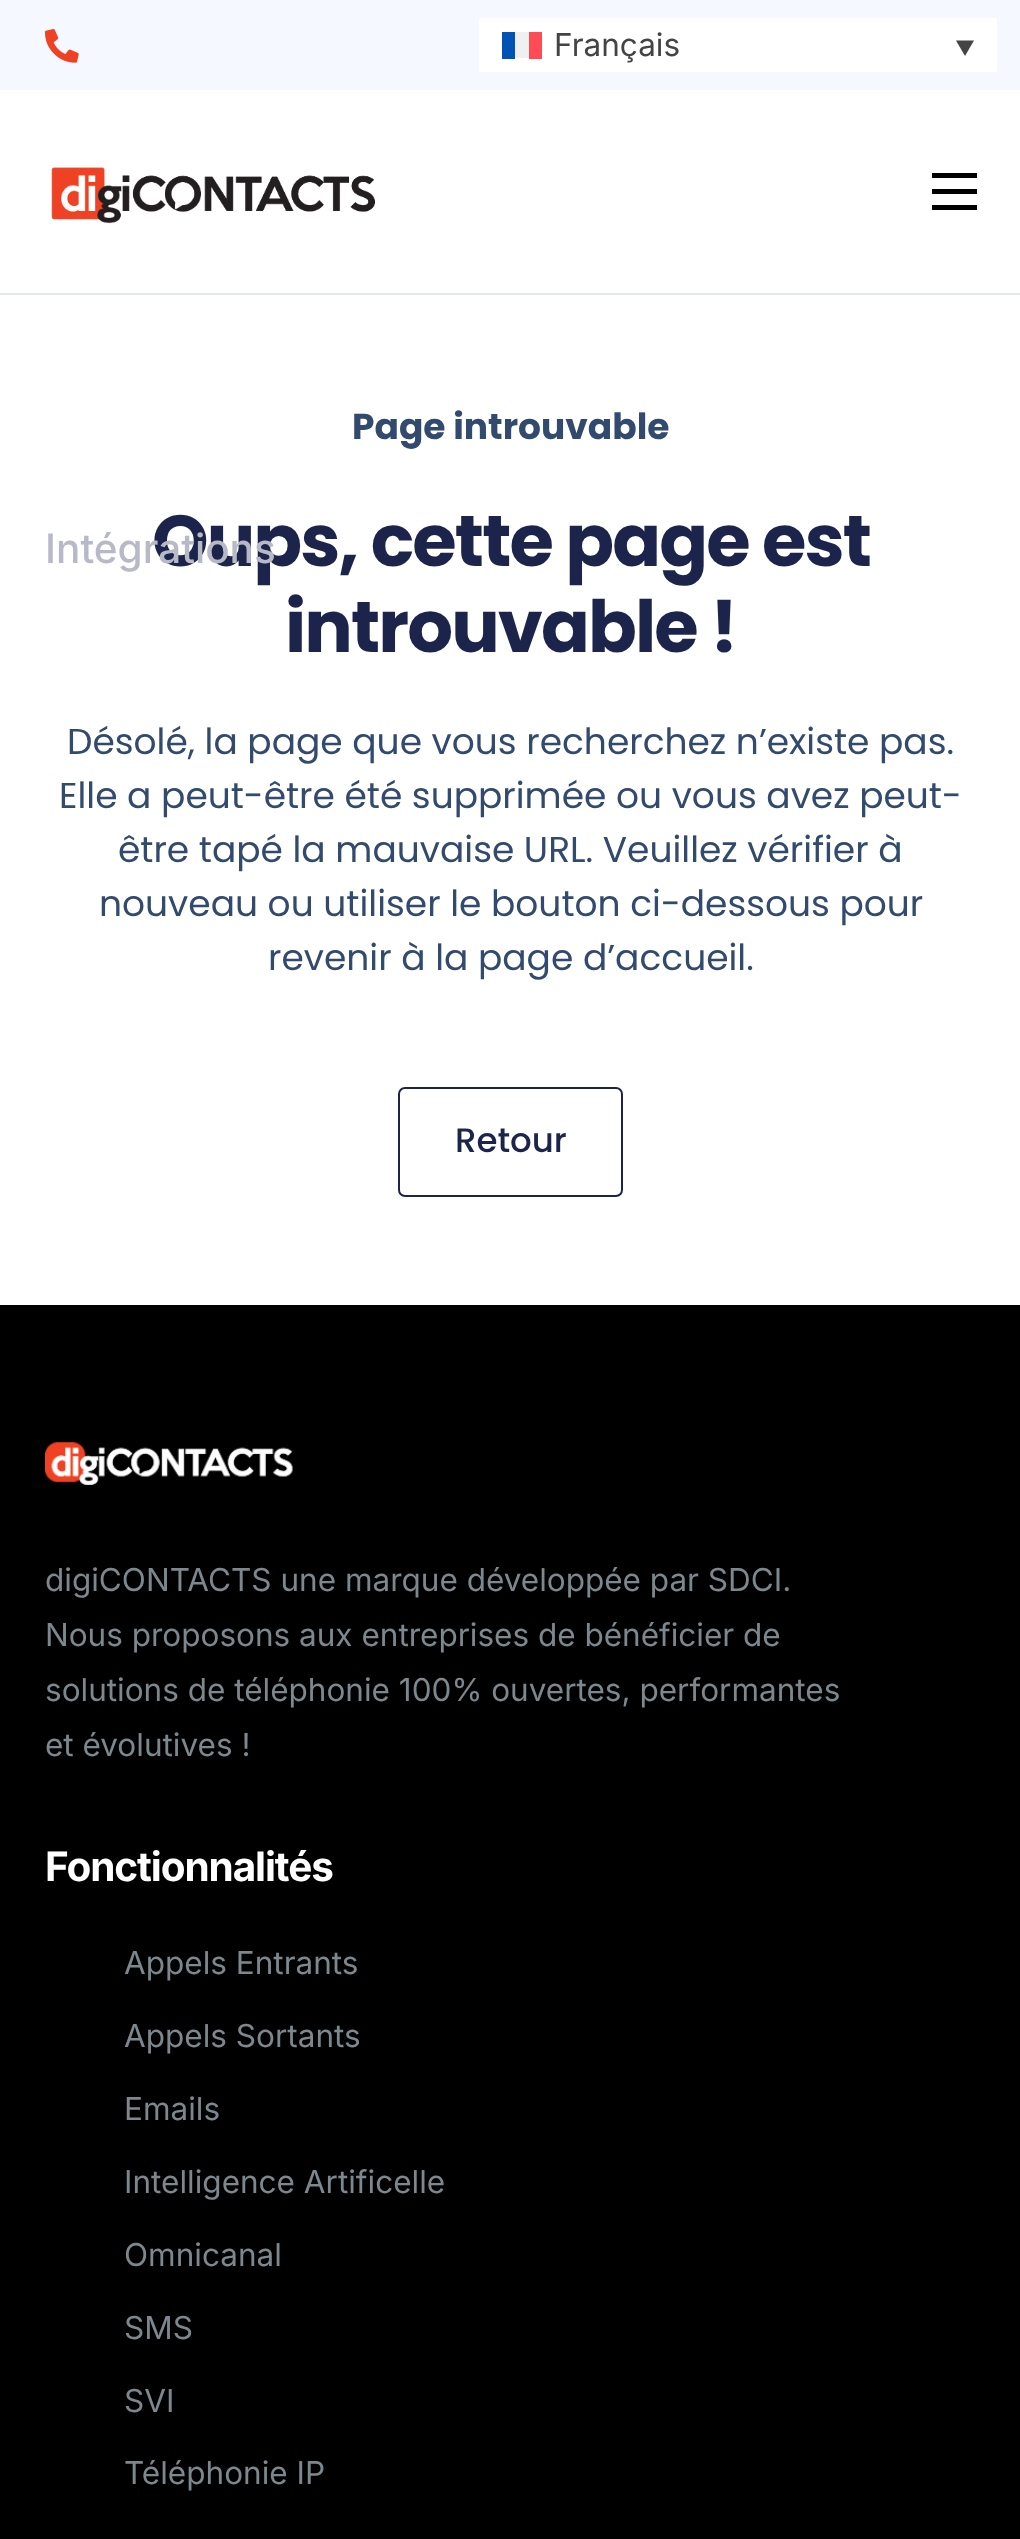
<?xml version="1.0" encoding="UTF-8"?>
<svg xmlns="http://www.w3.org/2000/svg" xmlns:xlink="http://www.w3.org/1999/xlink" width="1020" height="2539">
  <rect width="100%" height="100%" fill="#ffffff" />
  <rect width="1020" height="90" fill="#f5f8fe" />
  <image x="45" y="29" width="34" height="34" xlink:href="image1.png" />
  <rect x="479" y="18" width="518" height="54" fill="#ffffff" />
  <rect x="502" y="32" width="13" height="27" fill="#0052b4" />
  <rect x="515" y="32" width="14" height="26" fill="#f0f0f0" />
  <rect x="529" y="32" width="13" height="27" fill="#ff4b55" />
  <path d="M 956 40.5 h 18 l -9 15.5 z" fill="#444444" />
  <rect y="293" width="1020" height="2" fill="#e2e6f0" />
  <image x="51" y="167" width="324" height="57" xlink:href="image2.png" />
  <rect x="932" y="173" width="45" height="5" fill="#000000" />
  <rect x="932" y="189" width="45" height="5" fill="#000000" />
  <rect x="932" y="205" width="45" height="5" fill="#000000" />
  <rect x="399" y="1088" width="223" height="108" rx="6" fill="none" stroke="#1c244b" stroke-width="2" />
  <rect y="1305" width="1020" height="1234" fill="#000000" />
  <image x="45" y="1442" width="248" height="43" xlink:href="image3.png" />
  <text x="554" y="56" style="font-family: Inter; font-size: 31.5px; fill: #444444">Français</text>
  <text x="352" y="439" style="font-family: Poppins; font-size: 36px; font-weight: bold; fill: #324a6d">Page introuvable</text>
  <text x="152" y="566" style="font-family: Poppins; font-size: 72px; font-weight: bold; letter-spacing: -1.9px; fill: #1c244b">Oups, cette page est</text>
  <text x="45" y="563" style="font-family: Inter; font-size: 40.5px; font-weight: 500; fill: #b7b9c6">Intégrations</text>
  <text x="285" y="652" style="font-family: Poppins; font-size: 72px; font-weight: bold; letter-spacing: -1.9px; fill: #1c244b">introuvable !</text>
  <text x="67" y="754" style="font-family: Poppins; font-size: 36px; fill: #324a6d">Désolé, la page que vous recherchez n’existe pas.</text>
  <text x="59" y="808" style="font-family: Poppins; font-size: 36px; fill: #324a6d">Elle a peut-être été supprimée ou vous avez peut-</text>
  <text x="118" y="862" style="font-family: Poppins; font-size: 36px; fill: #324a6d">être tapé la mauvaise URL. Veuillez vérifier à</text>
  <text x="99" y="916" style="font-family: Poppins; font-size: 36px; fill: #324a6d">nouveau ou utiliser le bouton ci-dessous pour</text>
  <text x="268" y="970" style="font-family: Poppins; font-size: 36px; fill: #324a6d">revenir à la page d’accueil.</text>
  <text x="455" y="1152" style="font-family: Poppins; font-size: 34px; font-weight: 500; fill: #1c244b">Retour</text>
  <text x="45" y="1591" style="font-family: Inter; font-size: 31.5px; fill: #7c878e">digiCONTACTS une marque développée par SDCI.</text>
  <text x="45" y="1646" style="font-family: Inter; font-size: 31.5px; fill: #7c878e">Nous proposons aux entreprises de bénéficier de</text>
  <text x="45" y="1701" style="font-family: Inter; font-size: 31.5px; fill: #7c878e">solutions de téléphonie 100% ouvertes, performantes</text>
  <text x="45" y="1756" style="font-family: Inter; font-size: 31.5px; fill: #7c878e">et évolutives !</text>
  <text x="45" y="1881" style="font-family: Inter; font-size: 40.5px; font-weight: bold; letter-spacing: -1.1px; fill: #ffffff">Fonctionnalités</text>
  <text x="124" y="1974" style="font-family: Inter; font-size: 31.5px; fill: #7c878e">Appels Entrants</text>
  <text x="124" y="2047" style="font-family: Inter; font-size: 31.5px; fill: #7c878e">Appels Sortants</text>
  <text x="124" y="2120" style="font-family: Inter; font-size: 31.5px; fill: #7c878e">Emails</text>
  <text x="124" y="2193" style="font-family: Inter; font-size: 31.5px; fill: #7c878e">Intelligence Artificelle</text>
  <text x="124" y="2266" style="font-family: Inter; font-size: 31.5px; fill: #7c878e">Omnicanal</text>
  <text x="124" y="2339" style="font-family: Inter; font-size: 31.5px; fill: #7c878e">SMS</text>
  <text x="124" y="2412" style="font-family: Inter; font-size: 31.5px; fill: #7c878e">SVI</text>
  <text x="124" y="2484" style="font-family: Inter; font-size: 31.5px; fill: #7c878e">Téléphonie IP</text>
</svg>
